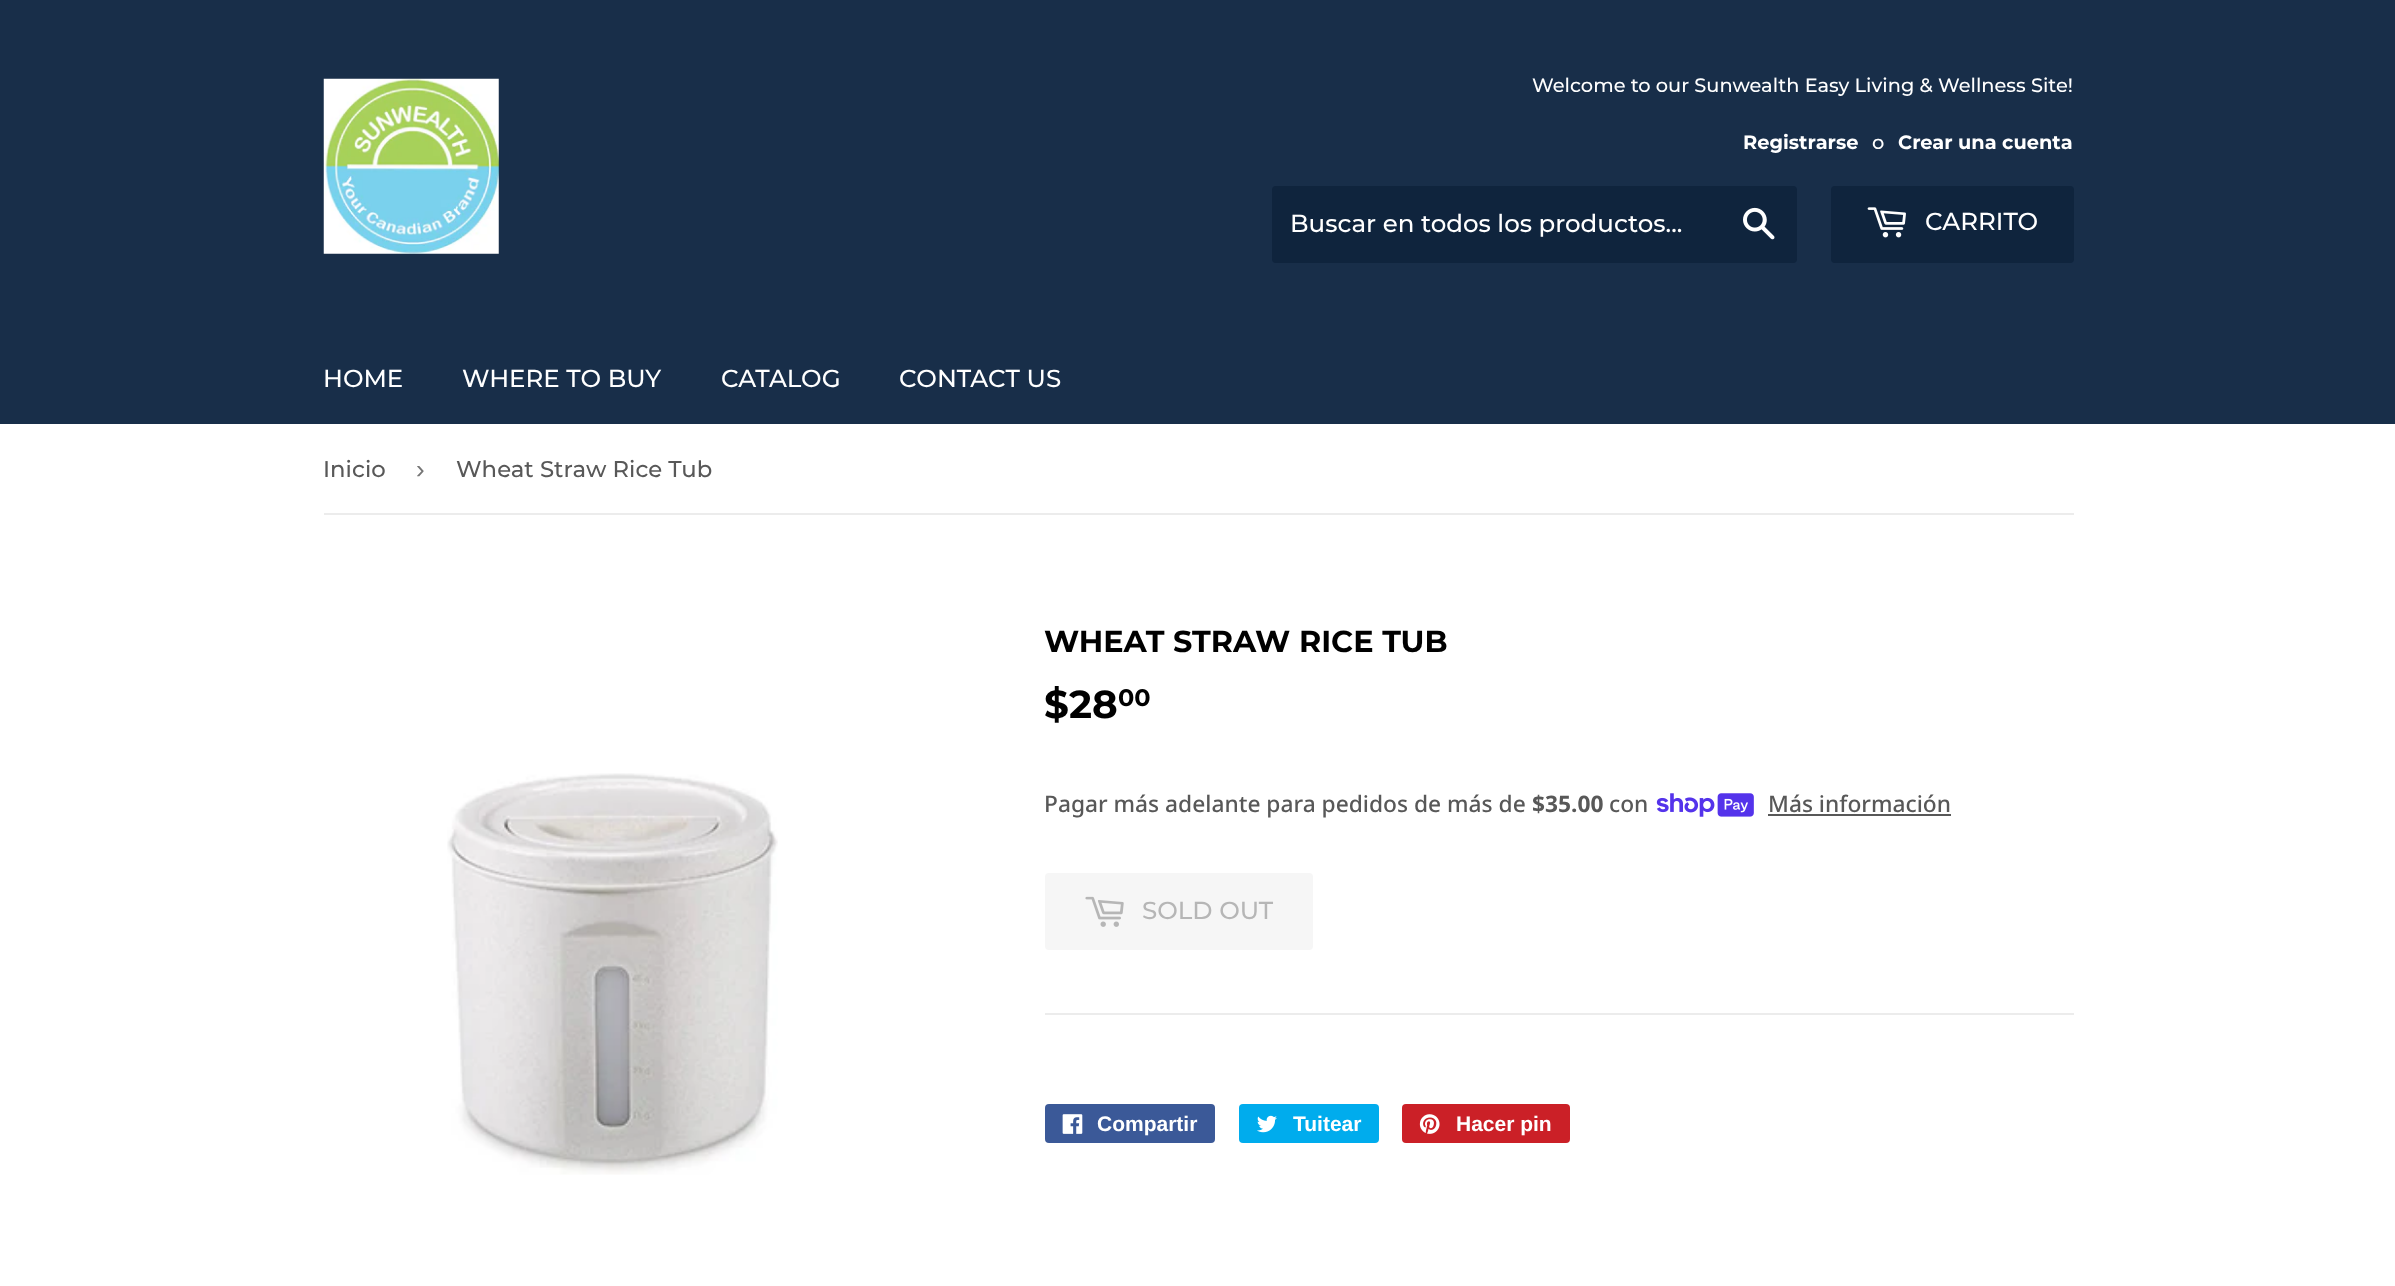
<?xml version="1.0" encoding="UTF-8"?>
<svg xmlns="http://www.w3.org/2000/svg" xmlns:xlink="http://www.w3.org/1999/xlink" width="2395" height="1286">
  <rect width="100%" height="100%" fill="#ffffff" />
  <rect width="2395" height="424" fill="#182e49" />
  <image x="323" y="78" width="176" height="176" xlink:href="image1.png" />
  <rect x="1272" y="186" width="525" height="77" rx="4" fill="#0f243d" />
  <image x="1743" y="207" width="32" height="33" xlink:href="image2.png" />
  <rect x="1831" y="186" width="243" height="77" rx="4" fill="#0f243d" />
  <image x="1867" y="207" width="39" height="31" xlink:href="image3.png" />
  <rect x="324" y="513" width="1750" height="2" fill="#ececec" />
  <image x="447" y="773" width="331" height="402" xlink:href="image4.png" />
  <image x="1656" y="793" width="98" height="24" xlink:href="image5.png" />
  <rect x="1768" y="814" width="183" height="2" fill="#585858" />
  <rect x="1045" y="873" width="268" height="77" rx="4" fill="#f6f6f6" />
  <image x="1085" y="896" width="39" height="31" xlink:href="image6.png" />
  <rect x="1045" y="1013" width="1029" height="2" fill="#ececec" />
  <rect x="1045" y="1104" width="170" height="39" rx="4" fill="#3b5998" />
  <image x="1062" y="1114" width="21" height="20" xlink:href="image7.png" />
  <rect x="1239" y="1104" width="140" height="39" rx="4" fill="#00aced" />
  <image x="1257" y="1115" width="20" height="18" xlink:href="image8.png" />
  <rect x="1402" y="1104" width="168" height="39" rx="4" fill="#cb2027" />
  <image x="1419" y="1114" width="21" height="20" xlink:href="image9.png" />
  <text x="1532" y="92" style="font-family: Montserrat; font-size: 19.35px; font-weight: 500; fill: #ffffff">Welcome to our Sunwealth Easy Living &amp; Wellness Site!</text>
  <text x="1743" y="149" style="font-family: Montserrat; font-size: 19.35px; font-weight: bold; fill: #ffffff">Registrarse</text>
  <text x="1872" y="149" style="font-family: Montserrat; font-size: 19.35px; font-weight: 500; fill: #ffffff">o</text>
  <text x="1898" y="149" style="font-family: Montserrat; font-size: 19.35px; font-weight: bold; fill: #ffffff">Crear una cuenta</text>
  <text x="1290" y="232" style="font-family: Montserrat; font-size: 24.5px; font-weight: 500; fill: #ffffff">Buscar en todos los productos...</text>
  <text x="1925" y="230" style="font-family: Montserrat; font-size: 24.5px; font-weight: 500; fill: #ffffff">CARRITO</text>
  <text x="323" y="387" style="font-family: Montserrat; font-size: 24.5px; font-weight: 500; fill: #ffffff">HOME</text>
  <text x="462" y="387" style="font-family: Montserrat; font-size: 24.5px; font-weight: 500; fill: #ffffff">WHERE TO BUY</text>
  <text x="721" y="387" style="font-family: Montserrat; font-size: 24.5px; font-weight: 500; fill: #ffffff">CATALOG</text>
  <text x="899" y="387" style="font-family: Montserrat; font-size: 24.5px; font-weight: 500; fill: #ffffff">CONTACT US</text>
  <text x="323" y="477" style="font-family: Montserrat; font-size: 22.75px; font-weight: 500; fill: #585858">Inicio</text>
  <text x="416" y="478" style="font-family: Liberation Sans; font-size: 26px; fill: #767676">›</text>
  <text x="456" y="477" style="font-family: Montserrat; font-size: 22.75px; font-weight: 500; fill: #585858">Wheat Straw Rice Tub</text>
  <text x="1044" y="652" style="font-family: Montserrat; font-size: 30.3px; font-weight: bold; fill: #000000">WHEAT STRAW RICE TUB</text>
  <text x="1044" y="718" style="font-family: Montserrat; font-size: 39px; font-weight: bold; fill: #000000">$28</text>
  <text x="1118" y="706" style="font-family: Montserrat; font-size: 24px; font-weight: bold; fill: #000000">00</text>
  <text x="1044" y="812" style="font-family: Noto Sans; font-size: 22.75px; font-weight: 500; fill: #585858">Pagar más adelante para pedidos de más de</text>
  <text x="1532" y="812" style="font-family: Noto Sans; font-size: 22.75px; font-weight: bold; fill: #585858">$35.00</text>
  <text x="1609" y="812" style="font-family: Noto Sans; font-size: 22.75px; font-weight: 500; fill: #585858">con</text>
  <text x="1768" y="812" style="font-family: Noto Sans; font-size: 22.75px; font-weight: 500; fill: #585858">Más información</text>
  <text x="1142" y="919" style="font-family: Montserrat; font-size: 24.5px; font-weight: 500; fill: #b6b6b6">SOLD OUT</text>
  <text x="1097" y="1131" style="font-family: Liberation Sans; font-size: 21px; font-weight: bold; fill: #ffffff">Compartir</text>
  <text x="1293" y="1131" style="font-family: Liberation Sans; font-size: 21px; font-weight: bold; fill: #ffffff">Tuitear</text>
  <text x="1456" y="1131" style="font-family: Liberation Sans; font-size: 21px; font-weight: bold; fill: #ffffff">Hacer pin</text>
</svg>
